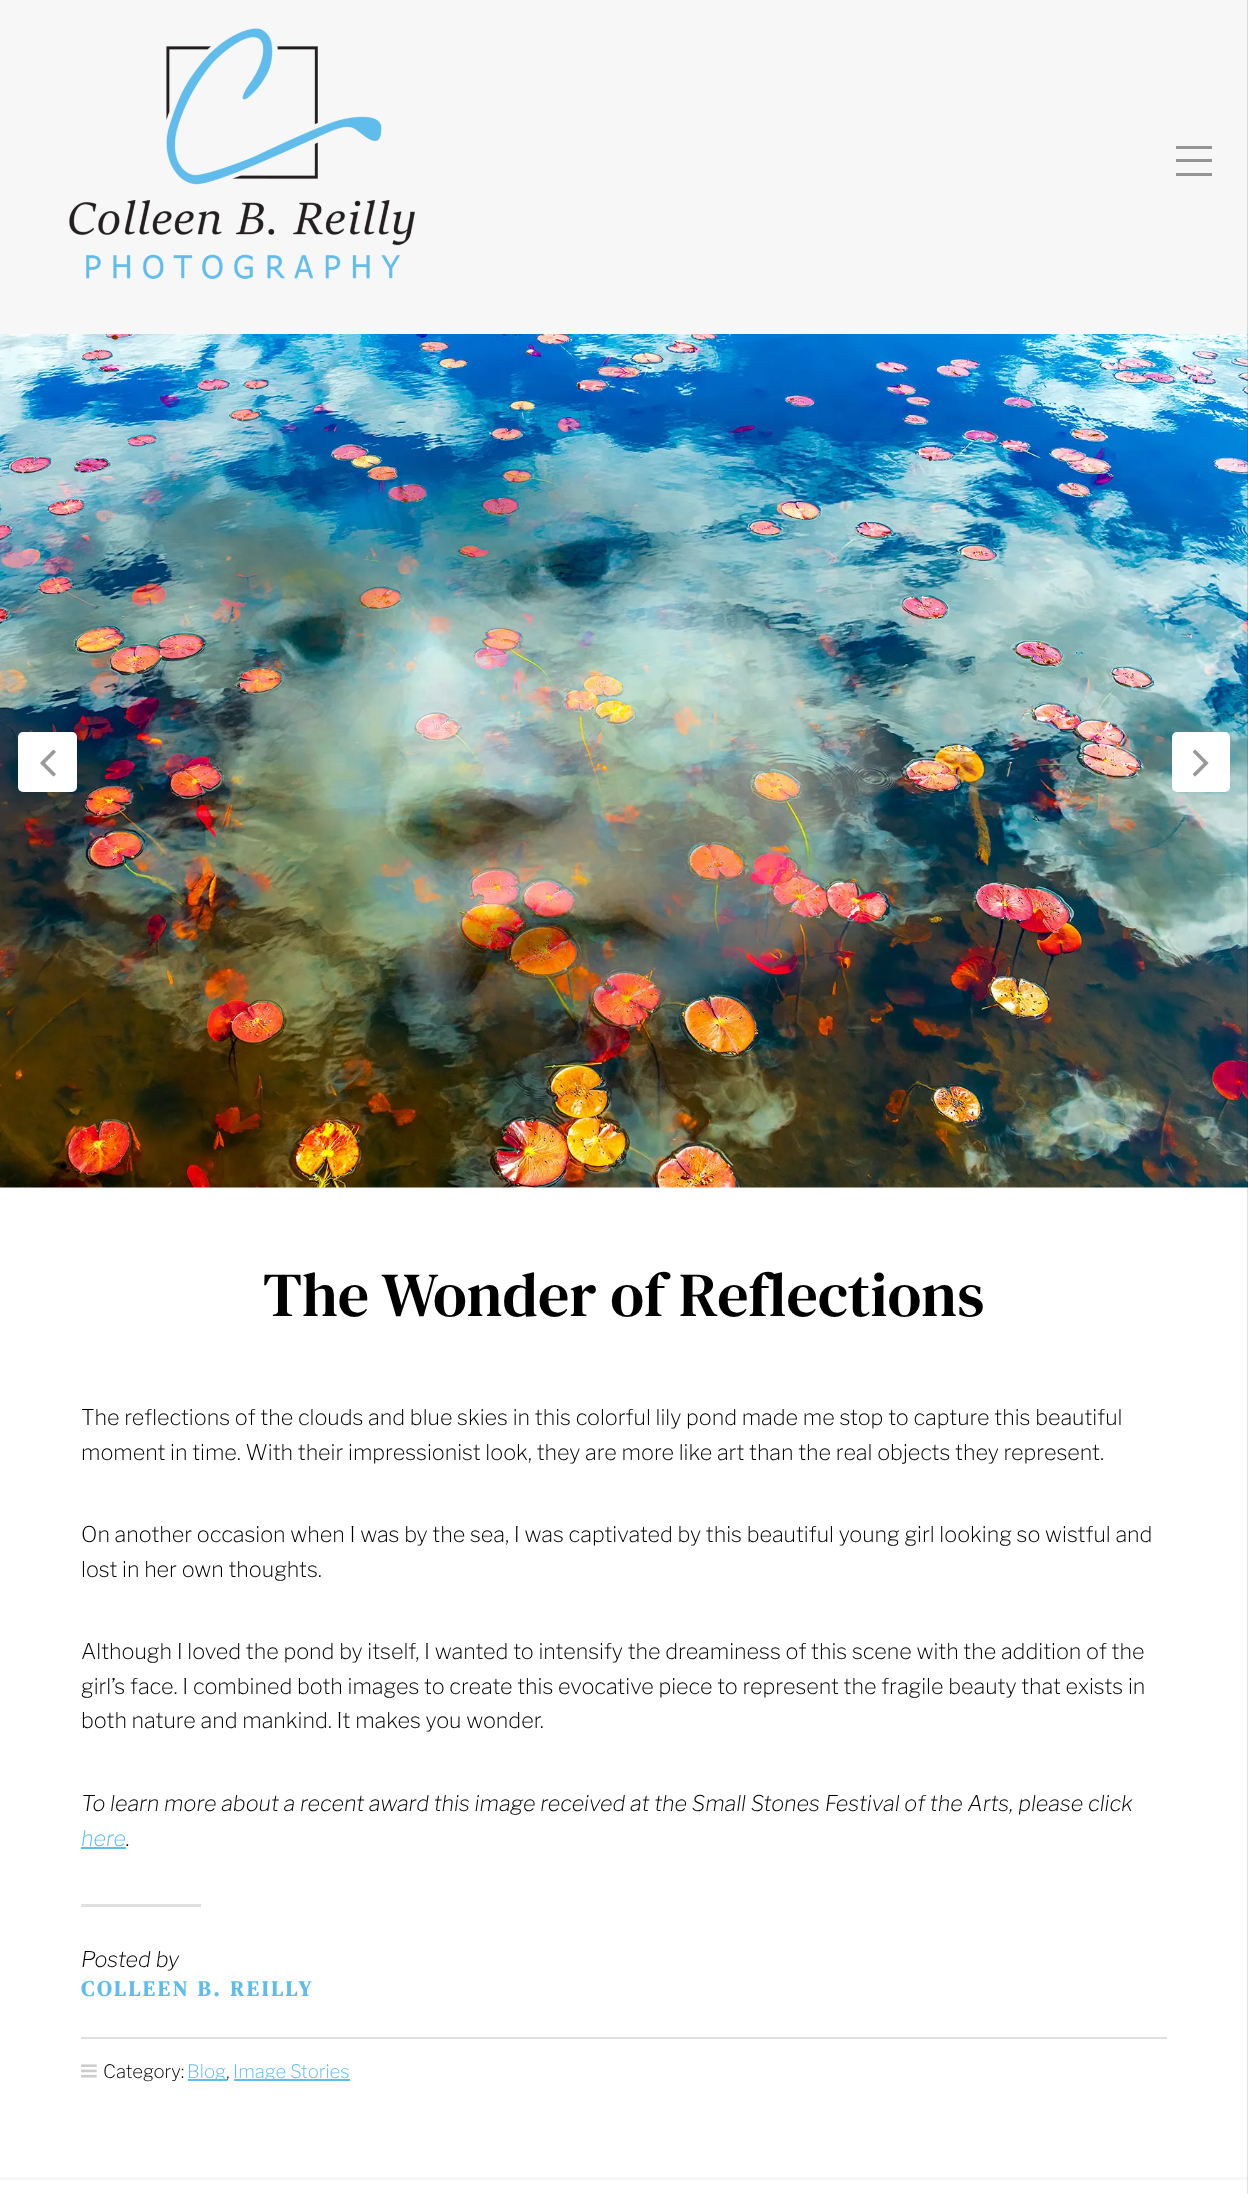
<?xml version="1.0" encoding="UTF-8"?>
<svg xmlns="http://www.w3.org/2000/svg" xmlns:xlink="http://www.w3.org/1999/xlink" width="1248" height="2194">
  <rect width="100%" height="100%" fill="#f7f7f7" />
  <image x="69" y="28" width="346" height="251" xlink:href="image1.png" />
  <rect x="1176" y="146" width="36" height="3" fill="#949494" />
  <rect x="1176" y="159" width="36" height="3" fill="#949494" />
  <rect x="1176" y="173" width="36" height="3" fill="#949494" />
  <rect y="1187" width="1248" height="990" fill="#ffffff" />
  <image x="0" y="334" width="1248" height="854" xlink:href="image2.png" />
  <rect x="18" y="732" width="59" height="60" rx="5" fill="#ffffff" />
  <image x="40" y="749" width="16" height="28" xlink:href="image3.png" />
  <rect x="1172" y="732" width="58" height="60" rx="5" fill="#ffffff" />
  <image x="1193" y="749" width="16" height="28" xlink:href="image4.png" />
  <rect x="81" y="1847" width="45" height="2" fill="#60bdeb" />
  <rect x="81" y="1904" width="120" height="3" fill="#e0e0e0" />
  <rect x="81" y="2037" width="1086" height="2" fill="#e0e0e0" />
  <image x="81" y="2064" width="16" height="14" xlink:href="image5.png" />
  <rect x="188" y="2079" width="39" height="2" fill="#60bdeb" />
  <rect x="234" y="2079" width="116" height="2" fill="#60bdeb" />
  <rect y="2180" width="1248" height="14" fill="#ffffff" />
  <rect x="1247" width="1" height="2194" fill="#000000" fill-opacity="0.12" />
  <text x="263" y="1316" style="font-family: DM Serif Text; font-size: 62.4px; fill: #000000">The Wonder of Reflections</text>
  <text x="81" y="1425" style="font-family: Libre Franklin; font-size: 21.6px; font-weight: 200; fill: #000000">The reflections of the clouds and blue skies in this colorful lily pond made me stop to capture this beautiful</text>
  <text x="81" y="1460" style="font-family: Libre Franklin; font-size: 21.6px; font-weight: 200; fill: #000000">moment in time. With their impressionist look, they are more like art than the real objects they represent.</text>
  <text x="81" y="1542" style="font-family: Libre Franklin; font-size: 21.6px; font-weight: 200; fill: #000000">On another occasion when I was by the sea, I was captivated by this beautiful young girl looking so wistful and</text>
  <text x="81" y="1577" style="font-family: Libre Franklin; font-size: 21.6px; font-weight: 200; fill: #000000">lost in her own thoughts.</text>
  <text x="81" y="1659" style="font-family: Libre Franklin; font-size: 21.6px; font-weight: 200; fill: #000000">Although I loved the pond by itself, I wanted to intensify the dreaminess of this scene with the addition of the</text>
  <text x="81" y="1694" style="font-family: Libre Franklin; font-size: 21.6px; font-weight: 200; fill: #000000">girl’s face. I combined both images to create this evocative piece to represent the fragile beauty that exists in</text>
  <text x="81" y="1728" style="font-family: Libre Franklin; font-size: 21.6px; font-weight: 200; fill: #000000">both nature and mankind. It makes you wonder.</text>
  <text x="81" y="1811" style="font-family: Libre Franklin; font-size: 21.6px; font-weight: 200; font-style: italic; fill: #000000">To learn more about a recent award this image received at the Small Stones Festival of the Arts, please click</text>
  <text x="81" y="1846" style="font-family: Libre Franklin; font-size: 21.6px; font-weight: 200; font-style: italic; fill: #60bdeb">here</text>
  <text x="126" y="1846" style="font-family: Libre Franklin; font-size: 21.6px; font-weight: 200; font-style: italic; fill: #000000">.</text>
  <text x="81" y="1967" style="font-family: Libre Franklin; font-size: 21.6px; font-weight: 200; font-style: italic; fill: #000000">Posted by</text>
  <text x="81" y="1996" style="font-family: DM Serif Text; font-size: 21.6px; font-weight: bold; letter-spacing: 3px; fill: #60bdeb">COLLEEN B. REILLY</text>
  <text x="103" y="2078" style="font-family: Libre Franklin; font-size: 18.5px; font-weight: 200; fill: #000000">Category:</text>
  <text x="187" y="2078" style="font-family: Libre Franklin; font-size: 18.5px; font-weight: 200; fill: #60bdeb">Blog</text>
  <text x="226" y="2078" style="font-family: Libre Franklin; font-size: 18.5px; font-weight: 200; fill: #000000">,</text>
  <text x="233" y="2078" style="font-family: Libre Franklin; font-size: 18.5px; font-weight: 200; fill: #60bdeb">Image Stories</text>
</svg>
